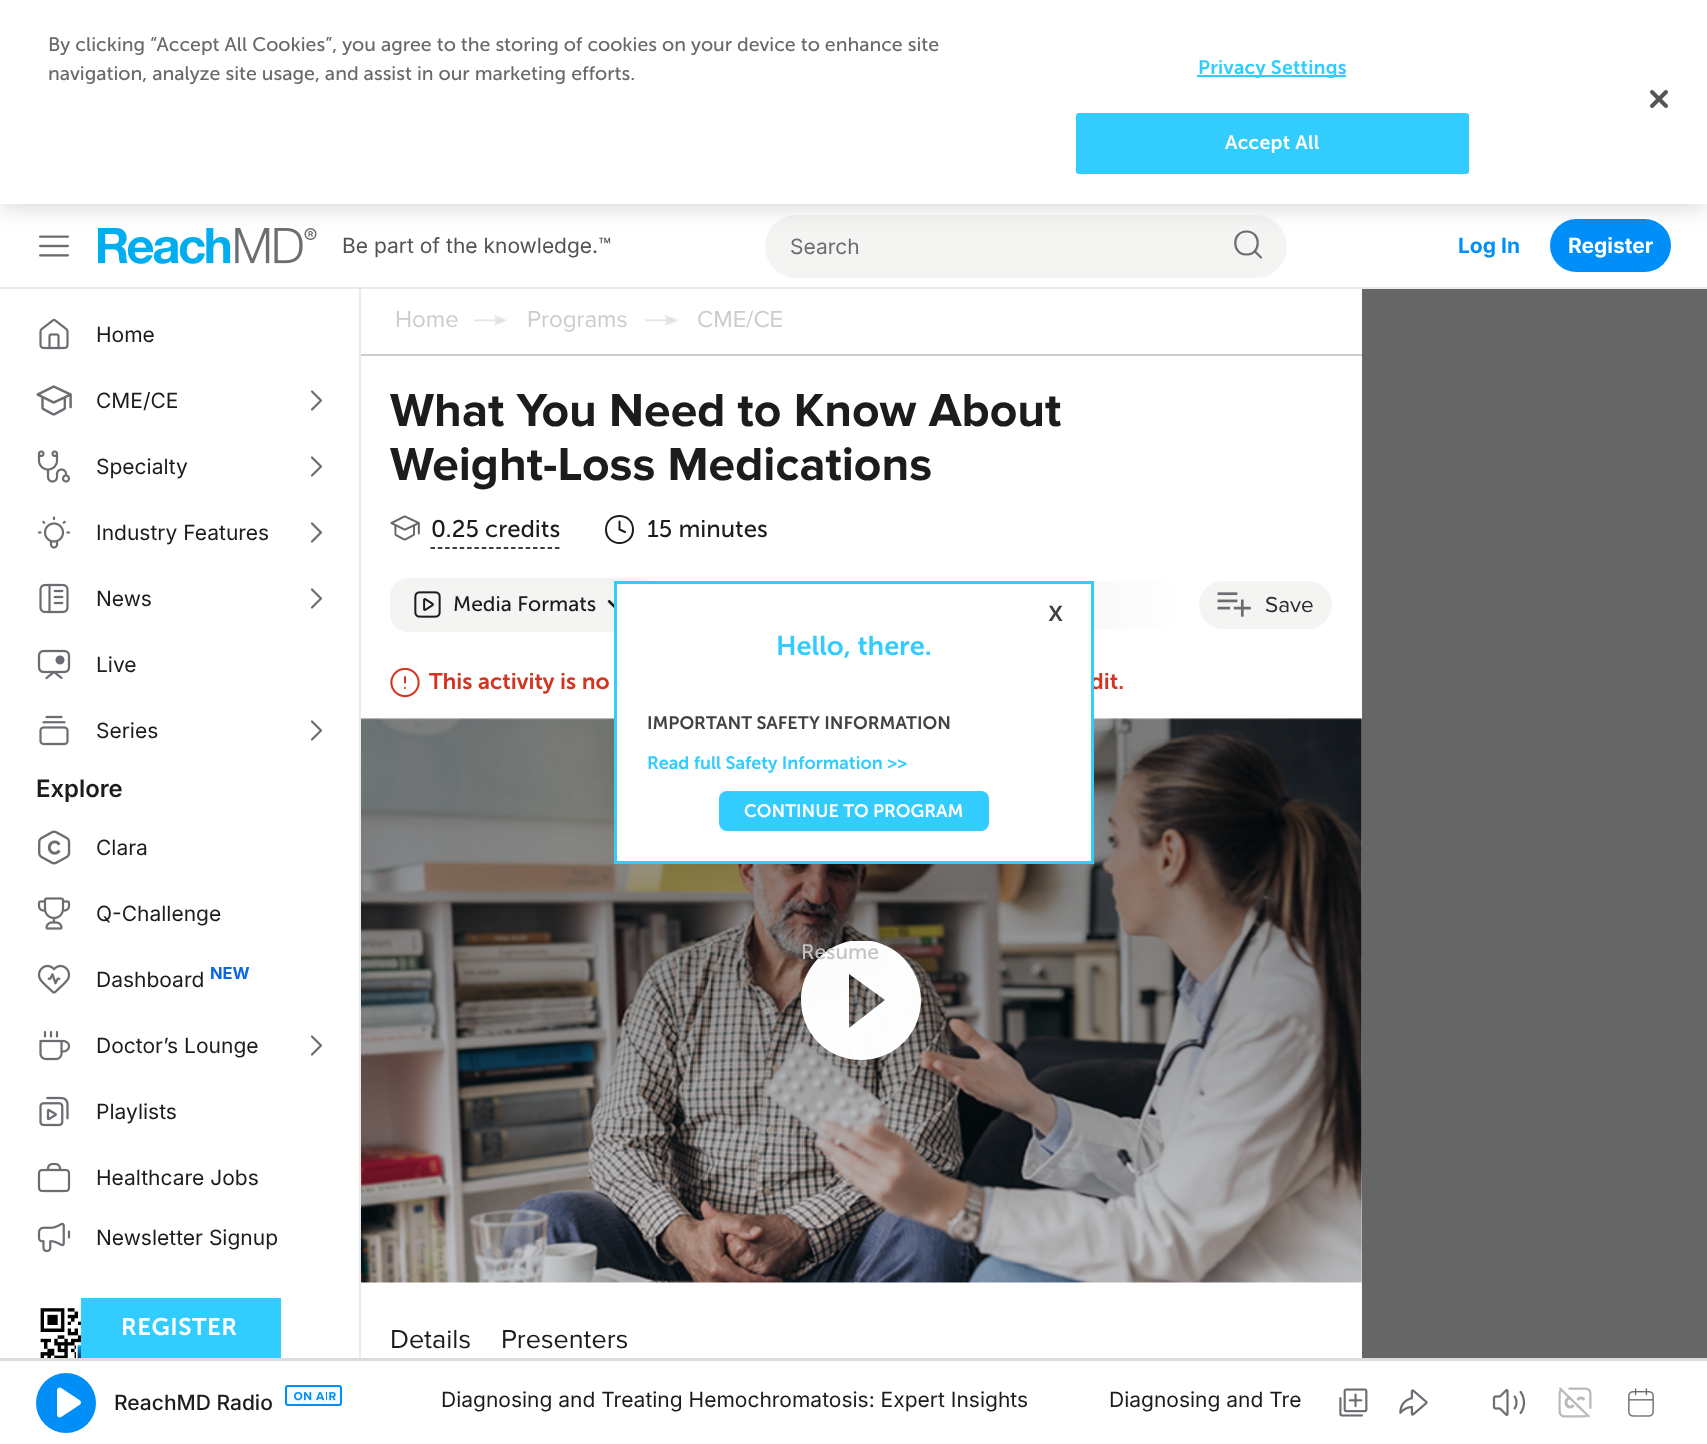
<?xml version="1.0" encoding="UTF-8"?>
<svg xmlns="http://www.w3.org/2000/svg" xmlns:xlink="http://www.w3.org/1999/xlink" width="1707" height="1444">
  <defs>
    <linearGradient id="g1" gradientUnits="userSpaceOnUse" x1="1029" y1="605" x2="1344" y2="605"><stop offset="0" stop-color="#f5f5f5" /><stop offset="0.5" stop-color="#ffffff" /><stop offset="1" stop-color="#f5f5f5" /></linearGradient>
    <clipPath id="clip1"><rect x="801" y="941" width="120" height="120" /></clipPath>
  </defs>
  <rect width="100%" height="100%" fill="#666666" />
  <rect y="204" width="1707" height="83" fill="#ffffff" />
  <image x="39" y="235" width="30" height="22" xlink:href="image2.png" />
  <image x="98" y="228" width="219" height="36" xlink:href="image3.png" />
  <path d="M 796.5 215 h 418.5 v 63 h -418.5 c -17.5 0 -31.5 -14 -31.5 -31.5 c 0 -17.5 14 -31.5 31.5 -31.5 z" fill="#f4f4f3" />
  <path d="M 1215 215 h 40.5 c 17.5 0 31.5 14 31.5 31.5 c 0 17.5 -14 31.5 -31.5 31.5 h -40.5 z" fill="#f4f4f3" />
  <path d="M 1246.5 254.5 c 15 0 15 -23 0 -23 c -15 0 -15 23 0 23 z m 14.5 3 l -6.5 -6.5" fill="none" stroke="#6c6c72" stroke-width="2.2" stroke-linecap="round" stroke-linejoin="round" />
  <rect x="1550" y="219" width="121" height="53" rx="26.5" fill="#008ff8" />
  <rect width="1707" height="204" fill="#000000" fill-opacity="0.2" filter="blur(13.5px)" />
  <rect width="1707" height="204" fill="#ffffff" />
  <rect x="1197" y="75" width="149" height="2" fill="#33ccff" />
  <rect x="1077" y="114" width="391" height="59" rx="2" fill="#33ccff" stroke="#33ccff" stroke-width="2" />
  <image x="1650" y="90" width="18" height="18" xlink:href="image1.png" />
  <rect x="361" y="289" width="1001" height="1069" fill="#ffffff" />
  <rect x="360" y="354" width="1002" height="2" fill="#cccccc" />
  <rect x="359" y="287" width="2" height="1071" fill="#eaeaea" />
  <rect y="287" width="1707" height="2" fill="#eaeaea" />
  <rect y="289" width="359" height="1069" fill="#ffffff" />
  <image x="39" y="318" width="30" height="32" xlink:href="image4.png" />
  <image x="36" y="385" width="36" height="31" xlink:href="image5.png" />
  <path d="M 312 409.5 l 9 -9 l -9 -9" fill="none" stroke="#6c6c72" stroke-width="2.2" stroke-linecap="round" stroke-linejoin="round" />
  <image x="37" y="450" width="34" height="33" xlink:href="image6.png" />
  <path d="M 312 475.5 l 9 -9 l -9 -9" fill="none" stroke="#6c6c72" stroke-width="2.2" stroke-linecap="round" stroke-linejoin="round" />
  <image x="37" y="516" width="34" height="33" xlink:href="image7.png" />
  <path d="M 312 541.5 l 9 -9 l -9 -9" fill="none" stroke="#6c6c72" stroke-width="2.2" stroke-linecap="round" stroke-linejoin="round" />
  <image x="39" y="583" width="30" height="31" xlink:href="image8.png" />
  <path d="M 312 607.5 l 9 -9 l -9 -9" fill="none" stroke="#6c6c72" stroke-width="2.2" stroke-linecap="round" stroke-linejoin="round" />
  <image x="37" y="649" width="34" height="31" xlink:href="image9.png" />
  <image x="39" y="715" width="30" height="31" xlink:href="image10.png" />
  <path d="M 312 739.5 l 9 -9 l -9 -9" fill="none" stroke="#6c6c72" stroke-width="2.2" stroke-linecap="round" stroke-linejoin="round" />
  <image x="38" y="830" width="33" height="35" xlink:href="image11.png" />
  <image x="37" y="897" width="34" height="33" xlink:href="image12.png" />
  <image x="37" y="964" width="34" height="30" xlink:href="image13.png" />
  <image x="39" y="1031" width="32" height="30" xlink:href="image14.png" />
  <path d="M 312 1054.5 l 9 -9 l -9 -9" fill="none" stroke="#6c6c72" stroke-width="2.2" stroke-linecap="round" stroke-linejoin="round" />
  <image x="39" y="1096" width="30" height="31" xlink:href="image15.png" />
  <image x="37" y="1162" width="34" height="31" xlink:href="image16.png" />
  <image x="37" y="1222" width="34" height="31" xlink:href="image17.png" />
  <image x="40" y="1308" width="41" height="50" xlink:href="image18.png" />
  <image x="474" y="315" width="33" height="11" xlink:href="image19.png" />
  <image x="645" y="315" width="33" height="11" xlink:href="image19.png" />
  <image x="390" y="515" width="30" height="26" xlink:href="image20.png" />
  <path d="M 430.5 548 h 129" fill="none" stroke="#000000" stroke-width="1.5" stroke-dasharray="4.5 2.82" />
  <path d="M 619.5 521.5 v 8 l 5.5 2.5 m 8 -2.5 c 0 18 -27 18 -27 0 c 0 -18 27 -18 27 0 z" fill="none" stroke="#1c1c1c" stroke-width="2" stroke-linecap="round" stroke-linejoin="round" />
  <rect x="390" y="578" width="269" height="54" rx="18" fill="#f4f4f3" />
  <image x="414" y="591" width="27" height="27" xlink:href="image21.png" />
  <image x="607" y="599" width="7" height="9" xlink:href="image22.png" />
  <rect x="1029" y="581" width="158" height="48" rx="24" fill="url(#g1)" />
  <rect x="1199" y="581" width="133" height="48" rx="24" fill="#f4f4f3" />
  <image x="1217" y="592" width="34" height="25" xlink:href="image23.png" />
  <image x="390" y="668" width="30" height="30" xlink:href="image24.png" />
  <image x="361" y="718" width="1001" height="565" xlink:href="image25.png" />
  <g clip-path="url(#clip1)">
    <path d="M 861 940 c -33 0 -60 28 -60 60 c 0 34 27 60 60 60 c 33 0 60 -26 60 -60 c 0 -32 -27 -60 -60 -60 z m -12 88 v -54 l 36 26 z" fill="#ffffff" fill-opacity="0.99" fill-rule="evenodd" />
  </g>
  <rect x="81" y="1298" width="200" height="60" fill="#33ccff" />
  <rect y="1361" width="1707" height="83" fill="#ffffff" />
  <rect y="1358" width="1707" height="3" fill="#dcdcdc" />
  <circle cx="66" cy="1403" r="30" fill="#008ff8" />
  <image x="57" y="1387" width="24" height="31" xlink:href="image26.png" />
  <rect x="286" y="1386" width="55" height="19" rx="2" fill="#f4faff" stroke="#008ff8" stroke-width="2" />
  <image x="294" y="1392" width="42" height="9" xlink:href="image27.png" />
  <image x="1339" y="1388" width="29" height="29" xlink:href="image28.png" />
  <image x="1399" y="1389" width="29" height="27" xlink:href="image29.png" />
  <image x="1492" y="1389" width="34" height="27" xlink:href="image30.png" />
  <image x="1558" y="1387" width="34" height="31" xlink:href="image31.png" />
  <image x="1628" y="1388" width="26" height="29" xlink:href="image32.png" />
  <text x="48" y="51" style="font-family: Museo Sans; font-size: 19.5px; fill: #696969">By clicking “Accept All Cookies”, you agree to the storing of cookies on your device to enhance site</text>
  <text x="48" y="80" style="font-family: Museo Sans; font-size: 19.5px; fill: #696969">navigation, analyze site usage, and assist in our marketing efforts.</text>
  <text x="1198" y="74" style="font-family: Museo Sans; font-size: 19.5px; font-weight: 600; letter-spacing: 0.25px; fill: #33ccff">Privacy Settings</text>
  <text x="1225" y="149" style="font-family: Museo Sans; font-size: 19.5px; font-weight: 600; letter-spacing: 0.25px; fill: #ffffff">Accept All</text>
  <text x="342" y="253" style="font-family: Inter; font-size: 21px; fill: #525257">Be part of the knowledge.™</text>
  <text x="790" y="254" style="font-family: Inter; font-size: 21px; fill: #6c6c72">Search</text>
  <text x="1458" y="253" style="font-family: Inter; font-size: 21px; font-weight: bold; fill: #008ff8">Log In</text>
  <text x="1568" y="253" style="font-family: Inter; font-size: 21px; font-weight: bold; fill: #ffffff">Register</text>
  <text x="96" y="342" style="font-family: Inter; font-size: 21px; fill: #1c1c1c">Home</text>
  <text x="96" y="408" style="font-family: Inter; font-size: 21px; fill: #1c1c1c">CME/CE</text>
  <text x="96" y="474" style="font-family: Inter; font-size: 21px; fill: #1c1c1c">Specialty</text>
  <text x="96" y="540" style="font-family: Inter; font-size: 21px; fill: #1c1c1c">Industry Features</text>
  <text x="96" y="606" style="font-family: Inter; font-size: 21px; fill: #1c1c1c">News</text>
  <text x="96" y="672" style="font-family: Inter; font-size: 21px; fill: #1c1c1c">Live</text>
  <text x="96" y="738" style="font-family: Inter; font-size: 21px; fill: #1c1c1c">Series</text>
  <text x="36" y="797" style="font-family: Inter; font-size: 24px; font-weight: 600; fill: #1c1c1c">Explore</text>
  <text x="96" y="855" style="font-family: Inter; font-size: 21px; fill: #1c1c1c">Clara</text>
  <text x="96" y="921" style="font-family: Inter; font-size: 21px; fill: #1c1c1c">Q-Challenge</text>
  <text x="96" y="987" style="font-family: Inter; font-size: 21px; fill: #1c1c1c">Dashboard</text>
  <text x="210" y="979" style="font-family: Inter; font-size: 16.5px; font-weight: bold; fill: #0b66e4">NEW</text>
  <text x="96" y="1053" style="font-family: Inter; font-size: 21px; fill: #1c1c1c">Doctor’s Lounge</text>
  <text x="96" y="1119" style="font-family: Inter; font-size: 21px; fill: #1c1c1c">Playlists</text>
  <text x="96" y="1185" style="font-family: Inter; font-size: 21px; fill: #1c1c1c">Healthcare Jobs</text>
  <text x="96" y="1245" style="font-family: Inter; font-size: 21px; fill: #1c1c1c">Newsletter Signup</text>
  <text x="395" y="327" style="font-family: Proxima Nova; font-size: 24px; fill: #cccccc">Home</text>
  <text x="527" y="327" style="font-family: Proxima Nova; font-size: 24px; fill: #cccccc">Programs</text>
  <text x="697" y="327" style="font-family: Proxima Nova; font-size: 24px; fill: #cccccc">CME/CE</text>
  <text x="390" y="426" style="font-family: Proxima Nova; font-size: 48px; font-weight: bold; fill: #1c1c1c">What You Need to Know About</text>
  <text x="390" y="480" style="font-family: Proxima Nova; font-size: 48px; font-weight: bold; fill: #1c1c1c">Weight-Loss Medications</text>
  <text x="431" y="537" style="font-family: Museo Sans; font-size: 24px; fill: #1c1c1c">0.25 credits</text>
  <text x="647" y="537" style="font-family: Museo Sans; font-size: 24px; fill: #1c1c1c">15 minutes</text>
  <text x="453" y="611" style="font-family: Museo Sans; font-size: 21px; fill: #1c1c1c">Media Formats</text>
  <text x="1265" y="612" style="font-family: Proxima Nova; font-size: 22.5px; fill: #2c2c2c">Save</text>
  <text x="429" y="689" style="font-family: Museo Sans; font-size: 22.5px; font-weight: 600; fill: #d5351f">This activity is no</text>
  <text x="1090" y="689" style="font-family: Museo Sans; font-size: 22.5px; font-weight: 600; fill: #d5351f">dit.</text>
  <text x="801" y="959" style="font-family: Museo Sans; font-size: 21px; fill: #c4c1c1">Resume</text>
  <text x="390" y="1348" style="font-family: Proxima Nova; font-size: 27px; fill: #1c1c1c">Details</text>
  <text x="501" y="1348" style="font-family: Proxima Nova; font-size: 27px; fill: #1c1c1c">Presenters</text>
  <rect x="615.5" y="582.5" width="477" height="280" fill="#ffffff" stroke="#33ccff" stroke-width="3" />
  <text x="1048" y="621" style="font-family: Museo Sans; font-size: 30px; fill: #424242">x</text>
  <text x="776" y="655" style="font-family: Museo Sans; font-size: 27px; font-weight: 600; fill: #33ccff">Hello, there.</text>
  <text x="647" y="729" style="font-family: Museo Sans; font-size: 18px; font-weight: 600; fill: #424242">IMPORTANT SAFETY INFORMATION</text>
  <text x="647" y="769" style="font-family: Museo Sans; font-size: 18px; font-weight: 600; fill: #33ccff">Read full Safety Information &gt;&gt;</text>
  <rect x="719" y="791" width="270" height="40" rx="8" fill="#33ccff" />
  <text x="744" y="817" style="font-family: Museo Sans; font-size: 18px; font-weight: 600; fill: #ffffff">CONTINUE TO PROGRAM</text>
  <text x="121" y="1335" style="font-family: Museo Sans; font-size: 24px; font-weight: 600; letter-spacing: 0.5px; fill: #ffffff">REGISTER</text>
  <text x="114" y="1410" style="font-family: Inter; font-size: 21px; font-weight: 500; fill: #1c1c1c">ReachMD Radio</text>
  <text x="441" y="1407" style="font-family: Inter; font-size: 21px; fill: #1c1c1c">Diagnosing and Treating Hemochromatosis: Expert Insights</text>
  <text x="1109" y="1407" style="font-family: Inter; font-size: 21px; fill: #1c1c1c">Diagnosing and Tre</text>
</svg>
